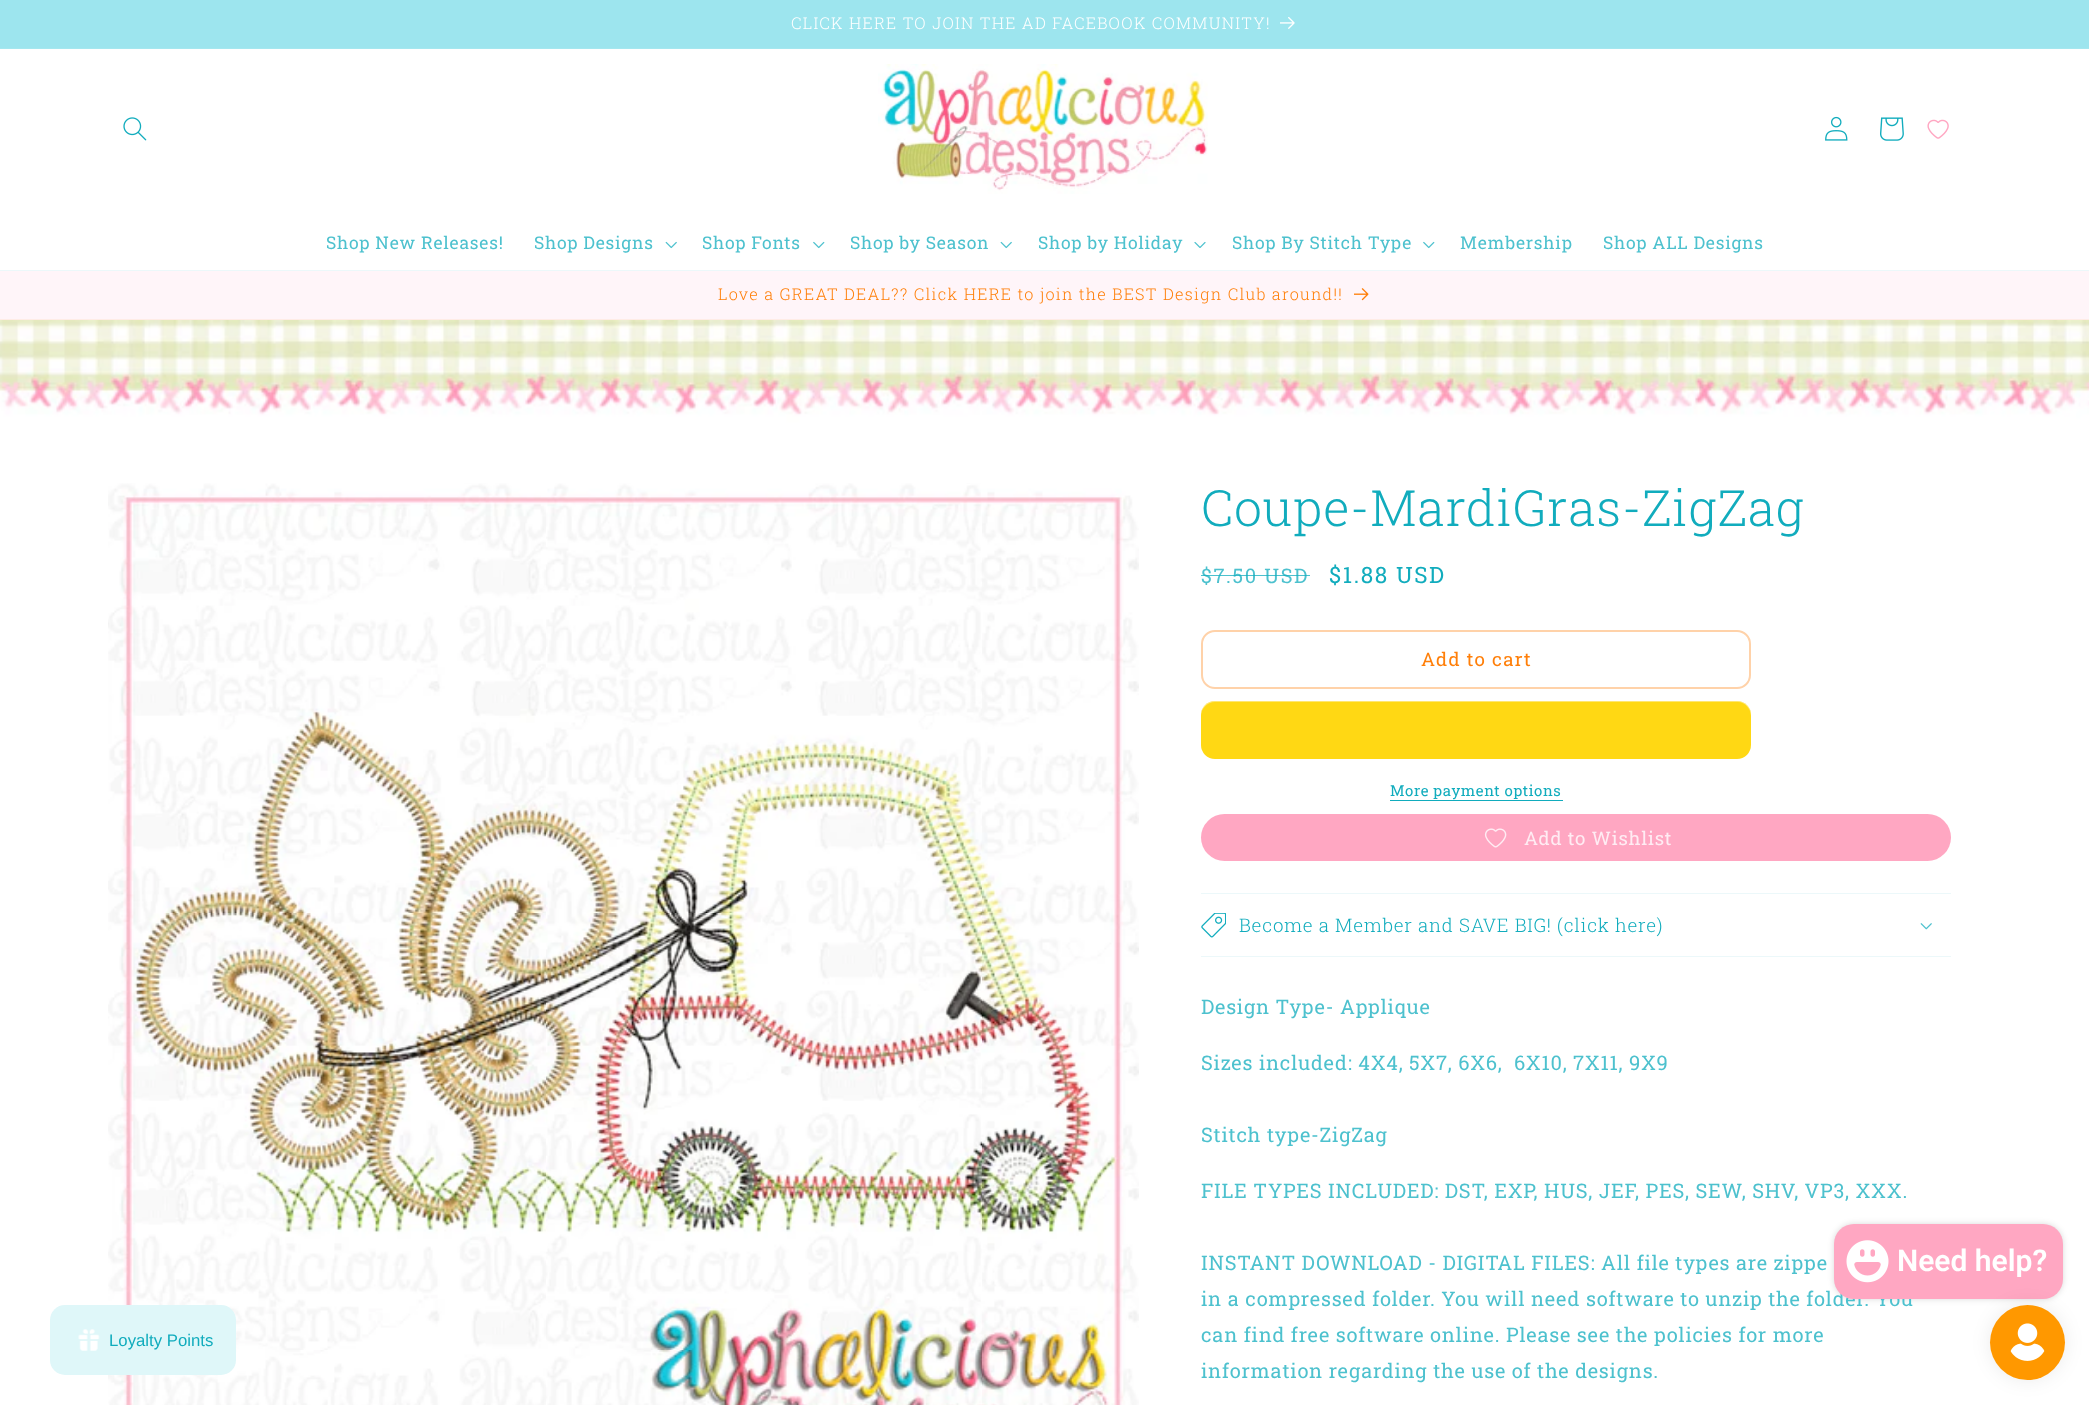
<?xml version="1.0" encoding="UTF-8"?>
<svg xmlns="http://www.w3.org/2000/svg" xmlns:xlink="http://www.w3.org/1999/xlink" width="2089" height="1405">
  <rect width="100%" height="100%" fill="#ffffff" />
  <rect width="2089" height="48" fill="#9de5ee" />
  <rect y="48" width="2089" height="1" fill="#a5e7ef" />
  <image x="1280" y="17" width="15" height="12" xlink:href="image1.png" />
  <rect y="270" width="2089" height="1" fill="#ecf8fa" />
  <image x="123" y="117" width="24" height="24" xlink:href="image2.png" />
  <image x="878" y="64" width="330" height="130" xlink:href="image3.png" />
  <image x="1825" y="116" width="23" height="25" xlink:href="image4.png" />
  <image x="1880" y="117" width="24" height="24" xlink:href="image5.png" />
  <image x="1927" y="119" width="22" height="20" xlink:href="image6.png" />
  <image x="665" y="241" width="12" height="8" xlink:href="image7.png" />
  <image x="813" y="241" width="12" height="8" xlink:href="image8.png" />
  <image x="1000" y="241" width="12" height="8" xlink:href="image7.png" />
  <image x="1194" y="242" width="12" height="6" xlink:href="image9.png" />
  <image x="1423" y="241" width="12" height="8" xlink:href="image8.png" />
  <rect y="271" width="2089" height="48" fill="#fff5f9" />
  <rect y="319" width="2089" height="1" fill="#ffece6" />
  <image x="1354" y="288" width="15" height="13" xlink:href="image10.png" />
  <image x="0" y="320" width="2089" height="125" xlink:href="image11.png" />
  <image x="108" y="483" width="1031" height="922" xlink:href="image12.png" />
  <rect x="1202" y="631" width="548" height="57" rx="13" fill="none" stroke="#ffd2a9" stroke-width="2" />
  <rect x="1201" y="701" width="550" height="58" rx="14" fill="#ffd814" />
  <path d="M 1215 702 h 523 c 7 0 13 7 13 14 v -1 c 0 -8 -6 -14 -14 -14 h -522 c -8 0 -14 6 -14 14 v 1 c 0 -7 6 -14 14 -14 z" fill="#ffffff" fill-opacity="0.4" />
  <rect x="1390" y="800" width="173" height="1" fill="#11acbd" />
  <rect x="1201" y="814" width="750" height="47" rx="23.5" fill="#ffa7c2" />
  <image x="1484" y="828" width="23" height="20" xlink:href="image13.png" />
  <rect x="1201" y="893" width="750" height="1" fill="#ecf8fa" />
  <rect x="1201" y="956" width="750" height="1" fill="#ecf8fa" />
  <image x="1201" y="913" width="25" height="25" xlink:href="image14.png" />
  <image x="1920" y="923" width="12" height="7" xlink:href="image15.png" />
  <rect x="1834" y="1224" width="229" height="75" rx="20" fill="#000000" fill-opacity="0.15" filter="blur(3px)" />
  <rect x="50" y="1305" width="186" height="70" rx="15" fill="#dff7f9" />
  <image x="78" y="1329" width="22" height="22" xlink:href="image17.png" />
  <text x="791" y="29" style="font-family: Roboto Slab; font-size: 16.25px; font-weight: 300; letter-spacing: 1.25px; fill: #ffffff">CLICK HERE TO JOIN THE AD FACEBOOK COMMUNITY!</text>
  <text x="326" y="249" style="font-family: Roboto Slab; font-size: 17.5px; letter-spacing: 0.75px; fill: #4dc1ce">Shop New Releases!</text>
  <text x="534" y="249" style="font-family: Roboto Slab; font-size: 17.5px; letter-spacing: 0.75px; fill: #4dc1ce">Shop Designs</text>
  <text x="702" y="249" style="font-family: Roboto Slab; font-size: 17.5px; letter-spacing: 0.75px; fill: #4dc1ce">Shop Fonts</text>
  <text x="850" y="249" style="font-family: Roboto Slab; font-size: 17.5px; letter-spacing: 0.75px; fill: #4dc1ce">Shop by Season</text>
  <text x="1038" y="249" style="font-family: Roboto Slab; font-size: 17.5px; letter-spacing: 0.75px; fill: #4dc1ce">Shop by Holiday</text>
  <text x="1232" y="249" style="font-family: Roboto Slab; font-size: 17.5px; letter-spacing: 0.75px; fill: #4dc1ce">Shop By Stitch Type</text>
  <text x="1460" y="249" style="font-family: Roboto Slab; font-size: 17.5px; letter-spacing: 0.75px; fill: #4dc1ce">Membership</text>
  <text x="1603" y="249" style="font-family: Roboto Slab; font-size: 17.5px; letter-spacing: 0.75px; fill: #4dc1ce">Shop ALL Designs</text>
  <text x="718" y="300" style="font-family: Roboto Slab; font-size: 16.25px; font-weight: 300; letter-spacing: 1.25px; fill: #ff7f09">Love a GREAT DEAL?? Click HERE to join the BEST Design Club around!!</text>
  <text x="1201" y="526" style="font-family: Roboto Slab; font-size: 50px; font-weight: 300; letter-spacing: 0.75px; fill: #11acbd">Coupe-MardiGras-ZigZag</text>
  <text x="1201" y="583" style="font-family: Roboto Slab; font-size: 20px; letter-spacing: 1.6px; fill: #4dc1ce">$7.50 USD</text>
  <rect x="1201" y="575" width="109" height="1" fill="#11acbd" fill-opacity="0.75" />
  <text x="1329" y="583" style="font-family: Roboto Slab; font-size: 22.5px; letter-spacing: 1.6px; fill: #11acbd">$1.88 USD</text>
  <text x="1421" y="666" style="font-family: Roboto Slab; font-size: 18.75px; letter-spacing: 1.25px; fill: #ff7f09">Add to cart</text>
  <text x="1390" y="796" style="font-family: Roboto Slab; font-size: 15px; letter-spacing: 0.6px; fill: #11acbd">More payment options</text>
  <text x="1524" y="845" style="font-family: Roboto Slab; font-size: 18.75px; letter-spacing: 0.75px; fill: #ffecf3">Add to Wishlist</text>
  <text x="1239" y="932" style="font-family: Roboto Slab; font-size: 18.75px; font-weight: 300; letter-spacing: 0.75px; fill: #11acbd">Become a Member and SAVE BIG! (click here)</text>
  <text x="1201" y="1014" style="font-family: Roboto Slab; font-size: 20px; letter-spacing: 0.75px; fill: #4dc1ce">Design Type- Applique</text>
  <text x="1201" y="1070" style="font-family: Roboto Slab; font-size: 20px; letter-spacing: 0.75px; fill: #4dc1ce" xml:space="preserve">Sizes included: 4X4, 5X7, 6X6,  6X10, 7X11, 9X9</text>
  <text x="1201" y="1142" style="font-family: Roboto Slab; font-size: 20px; letter-spacing: 0.75px; fill: #4dc1ce">Stitch type-ZigZag</text>
  <text x="1201" y="1198" style="font-family: Roboto Slab; font-size: 20px; letter-spacing: 0.75px; fill: #4dc1ce">FILE TYPES INCLUDED: DST, EXP, HUS, JEF, PES, SEW, SHV, VP3, XXX.</text>
  <text x="1201" y="1270" style="font-family: Roboto Slab; font-size: 20px; letter-spacing: 0.75px; fill: #4dc1ce">INSTANT DOWNLOAD - DIGITAL FILES: All file types are zippe</text>
  <text x="1201" y="1306" style="font-family: Roboto Slab; font-size: 20px; letter-spacing: 0.75px; fill: #4dc1ce">in a compressed folder. You will need software to unzip the folder. You</text>
  <text x="1201" y="1342" style="font-family: Roboto Slab; font-size: 20px; letter-spacing: 0.75px; fill: #4dc1ce">can find free software online. Please see the policies for more</text>
  <text x="1201" y="1378" style="font-family: Roboto Slab; font-size: 20px; letter-spacing: 0.75px; fill: #4dc1ce">information regarding the use of the designs.</text>
  <rect x="1834" y="1224" width="229" height="75" rx="20" fill="#ffa7c2" />
  <image x="1846" y="1240" width="43" height="43" xlink:href="image16.png" />
  <text x="1897" y="1271" style="font-family: Roboto; font-size: 30px; font-weight: 600; fill: #ffffff">Need help?</text>
  <text x="109" y="1346" style="font-family: Liberation Sans; font-size: 16.75px; fill: #11acbd">Loyalty Points</text>
  <rect x="1990" y="1305" width="75" height="75" rx="37.5" fill="#000000" fill-opacity="0.08" filter="blur(9.5px)" />
  <circle cx="2027.5" cy="1342.5" r="37.5" fill="#ff9800" />
  <image x="2010" y="1323" width="35" height="38" xlink:href="image18.png" />
</svg>
